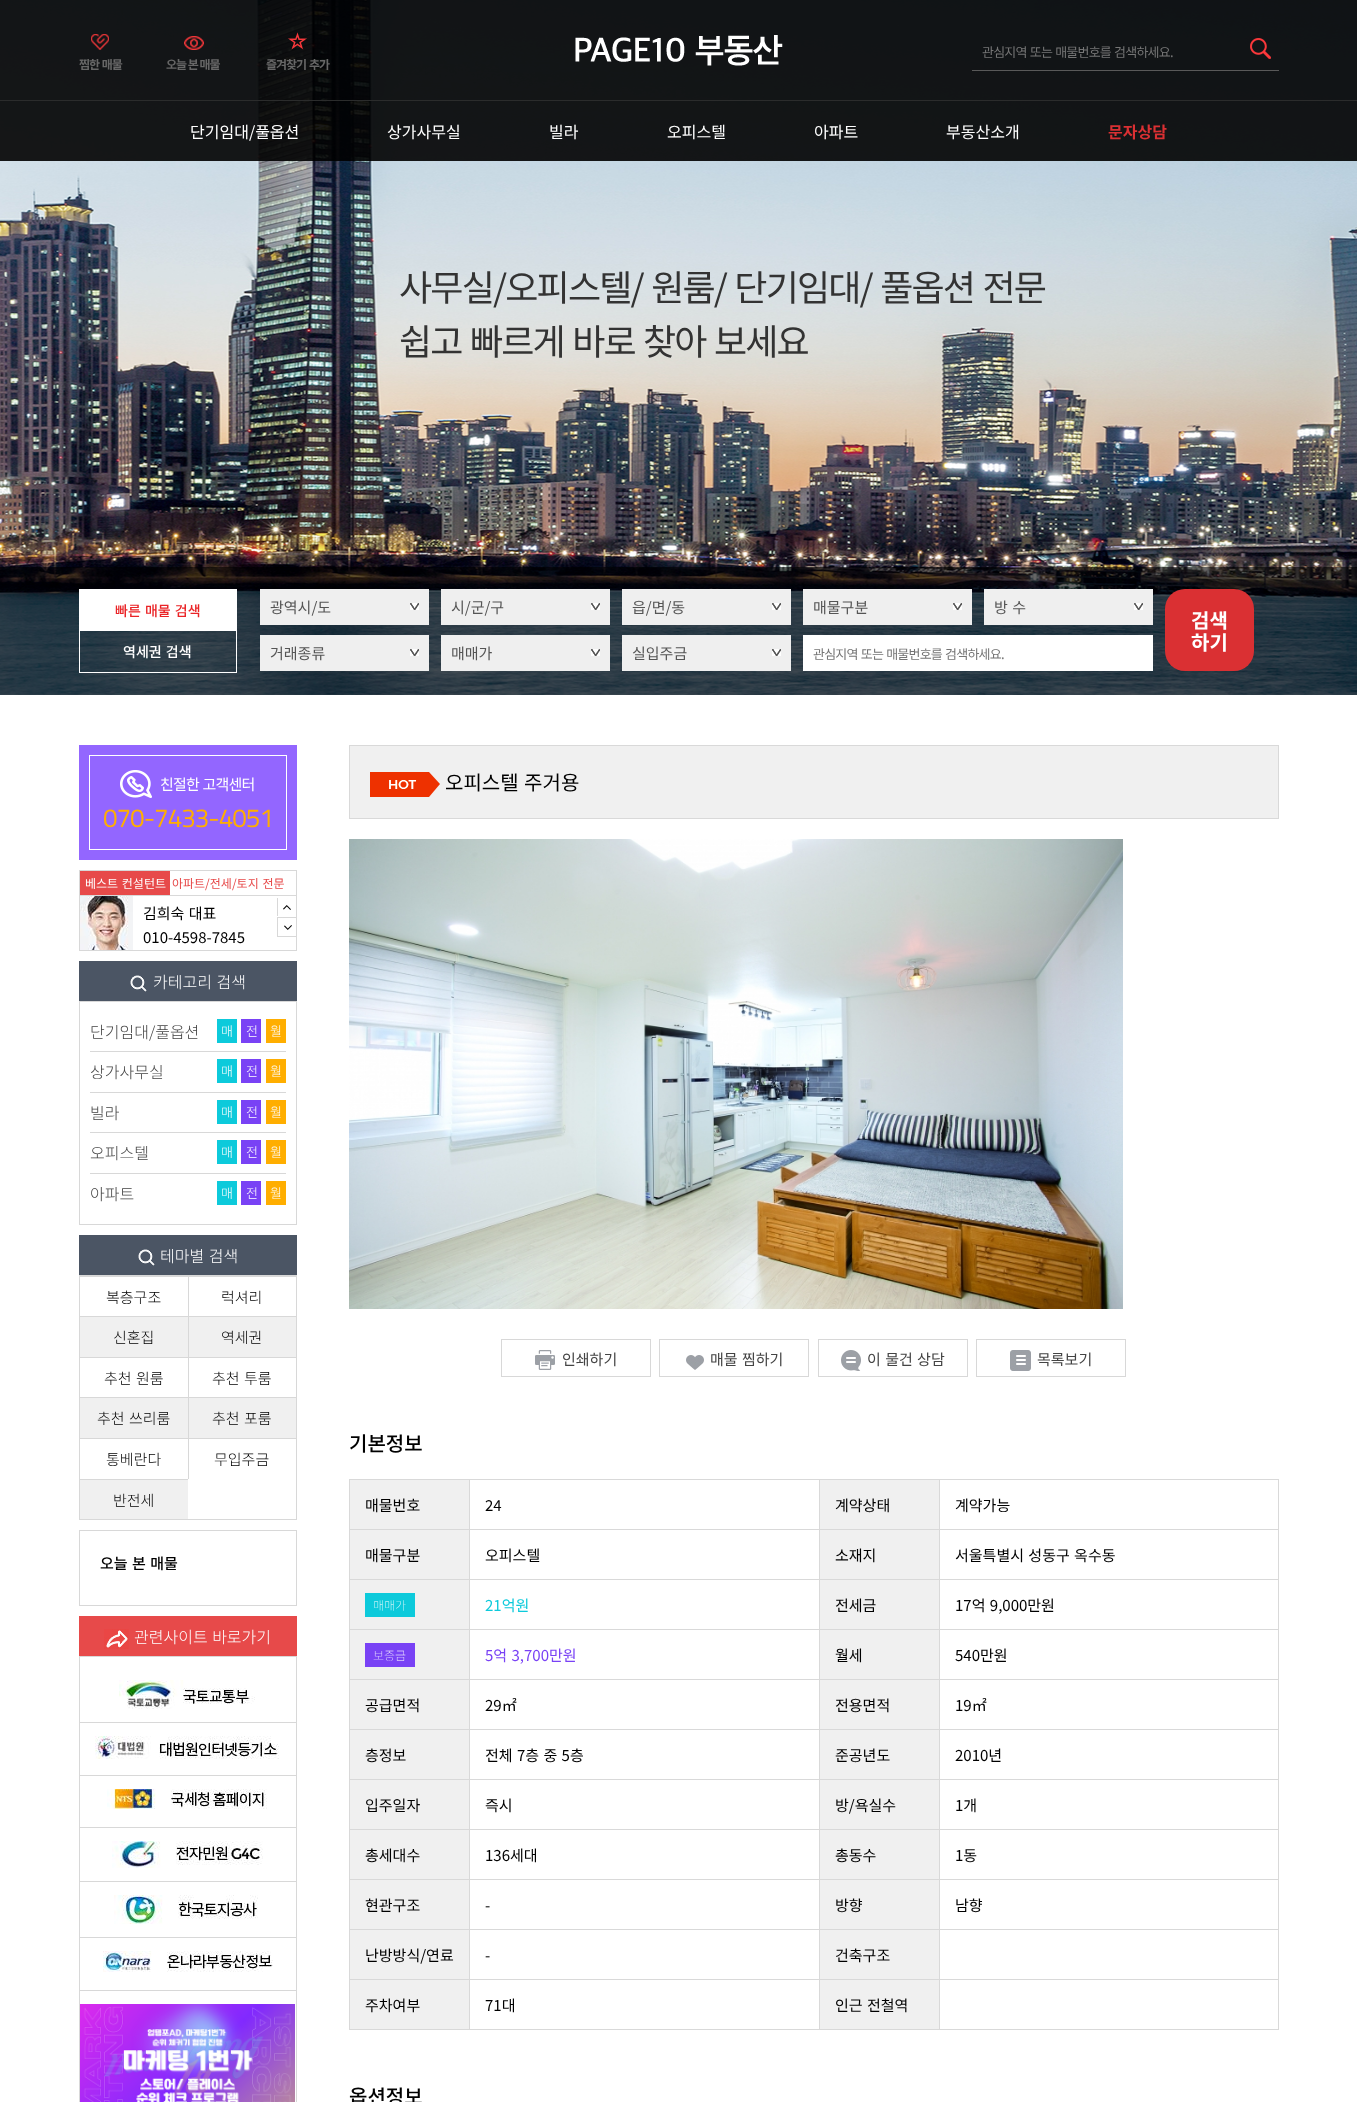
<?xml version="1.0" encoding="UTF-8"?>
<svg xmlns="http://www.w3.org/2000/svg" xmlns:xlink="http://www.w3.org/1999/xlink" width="1357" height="2102">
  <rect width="100%" height="100%" fill="#ffffff" />
  <image x="0" y="0" width="1357" height="695" xlink:href="image6.png" />
  <rect width="1357" height="100" fill="#000000" fill-opacity="0.9" />
  <image x="575" y="35" width="208" height="31" xlink:href="image1.png" />
  <rect x="972" y="70" width="307" height="1" fill="#595959" />
  <image x="1250" y="38" width="21" height="21" xlink:href="image2.png" />
  <image x="91" y="34" width="18" height="16" xlink:href="image3.png" />
  <image x="184" y="36" width="20" height="14" xlink:href="image4.png" />
  <image x="288" y="32" width="19" height="18" xlink:href="image5.png" />
  <rect y="101" width="1357" height="60" fill="#000000" fill-opacity="0.9" />
  <rect y="100" width="1357" height="1" fill="#2b2c2c" />
  <rect y="567" width="1357" height="128" fill="#000000" fill-opacity="0.6" />
  <rect x="79" y="589" width="158" height="42" fill="#ffffff" />
  <rect x="236" y="631" width="1" height="42" fill="#ffffff" />
  <rect x="79" y="672" width="158" height="1" fill="#ffffff" />
  <rect x="79" y="631" width="1" height="42" fill="#ffffff" />
  <rect x="260" y="589" width="169" height="36" fill="#efefef" />
  <image x="410" y="603" width="9" height="7" xlink:href="image7.png" />
  <rect x="441" y="589" width="169" height="36" fill="#efefef" />
  <image x="591" y="603" width="9" height="7" xlink:href="image7.png" />
  <rect x="622" y="589" width="169" height="36" fill="#efefef" />
  <image x="772" y="603" width="9" height="7" xlink:href="image7.png" />
  <rect x="803" y="589" width="169" height="36" fill="#efefef" />
  <image x="953" y="603" width="9" height="7" xlink:href="image7.png" />
  <rect x="984" y="589" width="169" height="36" fill="#efefef" />
  <image x="1134" y="603" width="9" height="7" xlink:href="image7.png" />
  <rect x="1165" y="589" width="89" height="82" rx="20" fill="#da3033" />
  <rect x="260" y="635" width="169" height="36" fill="#efefef" />
  <image x="410" y="649" width="9" height="7" xlink:href="image7.png" />
  <rect x="441" y="635" width="169" height="36" fill="#efefef" />
  <image x="591" y="649" width="9" height="7" xlink:href="image7.png" />
  <rect x="622" y="635" width="169" height="36" fill="#efefef" />
  <image x="772" y="649" width="9" height="7" xlink:href="image7.png" />
  <rect x="803" y="635" width="350" height="36" fill="#ffffff" />
  <rect x="79" y="745" width="218" height="115" fill="#9366ff" />
  <rect x="89.5" y="755.5" width="197" height="94" fill="none" stroke="#ffffff" />
  <image x="120" y="770" width="32" height="28" xlink:href="image8.png" />
  <rect x="79.5" y="870.5" width="217" height="80" fill="none" stroke="#d8d8d8" />
  <rect x="80" y="871" width="90" height="24" fill="#e74a4a" />
  <rect x="80" y="895" width="216" height="1" fill="#d9d9d9" />
  <image x="80" y="896" width="53" height="54" xlink:href="image9.png" />
  <image x="277" y="898" width="14" height="18" xlink:href="image10.png" />
  <image x="277" y="917" width="19" height="20" xlink:href="image11.png" />
  <rect x="79" y="961" width="218" height="40" fill="#4b5564" />
  <image x="130" y="975" width="17" height="17" xlink:href="image12.png" />
  <rect x="79.5" y="1001.5" width="217" height="223" fill="none" stroke="#d8d8d8" />
  <rect x="217" y="1019" width="20" height="24" fill="#0dcadb" />
  <rect x="241" y="1019" width="20" height="24" fill="#7942f5" />
  <rect x="266" y="1019" width="20" height="24" fill="#ffae00" />
  <rect x="90" y="1051" width="196" height="1" fill="#d8d8d8" />
  <rect x="217" y="1059" width="20" height="24" fill="#0dcadb" />
  <rect x="241" y="1059" width="20" height="24" fill="#7942f5" />
  <rect x="266" y="1059" width="20" height="24" fill="#ffae00" />
  <rect x="90" y="1092" width="196" height="1" fill="#d8d8d8" />
  <rect x="217" y="1100" width="20" height="24" fill="#0dcadb" />
  <rect x="241" y="1100" width="20" height="24" fill="#7942f5" />
  <rect x="266" y="1100" width="20" height="24" fill="#ffae00" />
  <rect x="90" y="1132" width="196" height="1" fill="#d8d8d8" />
  <rect x="217" y="1140" width="20" height="24" fill="#0dcadb" />
  <rect x="241" y="1140" width="20" height="24" fill="#7942f5" />
  <rect x="266" y="1140" width="20" height="24" fill="#ffae00" />
  <rect x="90" y="1173" width="196" height="1" fill="#d8d8d8" />
  <rect x="217" y="1181" width="20" height="24" fill="#0dcadb" />
  <rect x="241" y="1181" width="20" height="24" fill="#7942f5" />
  <rect x="266" y="1181" width="20" height="24" fill="#ffae00" />
  <rect x="79" y="1235" width="218" height="40" fill="#4b5564" />
  <image x="138" y="1249" width="17" height="17" xlink:href="image12.png" />
  <rect x="79.5" y="1275.5" width="217" height="244" fill="none" stroke="#d8d8d8" />
  <rect x="80" y="1276" width="216" height="1" fill="#d8d8d8" />
  <rect x="188" y="1276" width="1" height="40" fill="#d8d8d8" />
  <rect x="80" y="1317" width="108" height="40" fill="#f0f0f0" />
  <rect x="80" y="1316" width="216" height="1" fill="#d8d8d8" />
  <rect x="189" y="1317" width="107" height="40" fill="#f0f0f0" />
  <rect x="188" y="1316" width="1" height="41" fill="#d8d8d8" />
  <rect x="80" y="1357" width="216" height="1" fill="#d8d8d8" />
  <rect x="188" y="1357" width="1" height="40" fill="#d8d8d8" />
  <rect x="80" y="1398" width="108" height="40" fill="#f0f0f0" />
  <rect x="80" y="1397" width="216" height="1" fill="#d8d8d8" />
  <rect x="189" y="1398" width="107" height="40" fill="#f0f0f0" />
  <rect x="188" y="1397" width="1" height="41" fill="#d8d8d8" />
  <rect x="80" y="1438" width="216" height="1" fill="#d8d8d8" />
  <rect x="188" y="1438" width="1" height="41" fill="#d8d8d8" />
  <rect x="80" y="1480" width="108" height="39" fill="#f0f0f0" />
  <rect x="80" y="1479" width="108" height="1" fill="#d8d8d8" />
  <rect x="79.5" y="1530.5" width="217" height="75" fill="none" stroke="#d8d8d8" />
  <rect x="79" y="1616" width="218" height="40" fill="#e74a4a" />
  <image x="104" y="1629" width="25" height="20" xlink:href="image13.png" />
  <rect x="79.5" y="1656.5" width="217" height="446" fill="none" stroke="#d8d8d8" />
  <image x="119" y="1680" width="136" height="29" xlink:href="image14.png" />
  <rect x="80" y="1722" width="216" height="1" fill="#d8d8d8" />
  <image x="95" y="1736" width="184" height="23" xlink:href="image15.png" />
  <rect x="80" y="1775" width="216" height="1" fill="#d8d8d8" />
  <image x="107" y="1789" width="160" height="20" xlink:href="image16.png" />
  <rect x="80" y="1827" width="216" height="1" fill="#d8d8d8" />
  <image x="112" y="1841" width="151" height="27" xlink:href="image17.png" />
  <rect x="80" y="1881" width="216" height="1" fill="#d8d8d8" />
  <image x="114" y="1895" width="144" height="29" xlink:href="image18.png" />
  <rect x="80" y="1937" width="216" height="1" fill="#d8d8d8" />
  <image x="103" y="1951" width="170" height="21" xlink:href="image19.png" />
  <rect x="80" y="1990" width="216" height="1" fill="#d8d8d8" />
  <image x="80" y="2004" width="215" height="98" xlink:href="image20.png" />
  <rect x="349.5" y="745.5" width="929" height="73" fill="#f0f0f0" stroke="#d9d9d9" />
  <image x="370" y="772" width="70" height="25" xlink:href="image21.png" />
  <image x="349" y="839" width="774" height="470" xlink:href="image22.png" />
  <rect x="501.5" y="1339.5" width="149" height="37" fill="none" stroke="#d8d8d8" />
  <image x="535" y="1350" width="20" height="20" xlink:href="image23.png" />
  <rect x="659.5" y="1339.5" width="149" height="37" fill="none" stroke="#d8d8d8" />
  <image x="686" y="1355" width="18" height="15" xlink:href="image24.png" />
  <rect x="818.5" y="1339.5" width="149" height="37" fill="none" stroke="#d8d8d8" />
  <image x="841" y="1350" width="20" height="21" xlink:href="image25.png" />
  <rect x="976.5" y="1339.5" width="149" height="37" fill="none" stroke="#d8d8d8" />
  <image x="1010" y="1350" width="21" height="21" xlink:href="image26.png" />
  <rect x="350" y="1480" width="119" height="49" fill="#f0f0f0" />
  <rect x="939" y="1479" width="340" height="1" fill="#d9d9d9" />
  <rect x="939" y="1529" width="340" height="1" fill="#d9d9d9" />
  <rect x="939" y="1579" width="340" height="1" fill="#d9d9d9" />
  <rect x="939" y="1629" width="340" height="1" fill="#d9d9d9" />
  <rect x="939" y="1679" width="340" height="1" fill="#d9d9d9" />
  <rect x="939" y="1729" width="340" height="1" fill="#d9d9d9" />
  <rect x="939" y="1779" width="340" height="1" fill="#d9d9d9" />
  <rect x="939" y="1829" width="340" height="1" fill="#d9d9d9" />
  <rect x="939" y="1879" width="340" height="1" fill="#d9d9d9" />
  <rect x="939" y="1929" width="340" height="1" fill="#d9d9d9" />
  <rect x="939" y="1979" width="340" height="1" fill="#d9d9d9" />
  <rect x="1278" y="1979" width="1" height="51" fill="#d9d9d9" />
  <rect x="939" y="2029" width="340" height="1" fill="#d9d9d9" />
  <rect x="939" y="1979" width="1" height="51" fill="#d9d9d9" />
  <rect x="819" y="1979" width="121" height="1" fill="#d9d9d9" />
  <rect x="939" y="1929" width="1" height="51" fill="#d9d9d9" />
  <rect x="819" y="1929" width="121" height="1" fill="#d9d9d9" />
  <rect x="939" y="1879" width="1" height="51" fill="#d9d9d9" />
  <rect x="819" y="1879" width="121" height="1" fill="#d9d9d9" />
  <rect x="939" y="1829" width="1" height="51" fill="#d9d9d9" />
  <rect x="819" y="1829" width="121" height="1" fill="#d9d9d9" />
  <rect x="939" y="1779" width="1" height="51" fill="#d9d9d9" />
  <rect x="819" y="1779" width="121" height="1" fill="#d9d9d9" />
  <rect x="939" y="1729" width="1" height="51" fill="#d9d9d9" />
  <rect x="819" y="1729" width="121" height="1" fill="#d9d9d9" />
  <rect x="939" y="1679" width="1" height="51" fill="#d9d9d9" />
  <rect x="819" y="1679" width="121" height="1" fill="#d9d9d9" />
  <rect x="939" y="1629" width="1" height="51" fill="#d9d9d9" />
  <rect x="819" y="1629" width="121" height="1" fill="#d9d9d9" />
  <rect x="939" y="1579" width="1" height="51" fill="#d9d9d9" />
  <rect x="819" y="1579" width="121" height="1" fill="#d9d9d9" />
  <rect x="939" y="1529" width="1" height="51" fill="#d9d9d9" />
  <rect x="819" y="1529" width="121" height="1" fill="#d9d9d9" />
  <rect x="939" y="1479" width="1" height="51" fill="#d9d9d9" />
  <rect x="819" y="1479" width="121" height="1" fill="#d9d9d9" />
  <rect x="819" y="2029" width="121" height="1" fill="#d9d9d9" />
  <rect x="819" y="1979" width="1" height="51" fill="#d9d9d9" />
  <rect x="469" y="1979" width="351" height="1" fill="#d9d9d9" />
  <rect x="819" y="1929" width="1" height="51" fill="#d9d9d9" />
  <rect x="469" y="1929" width="351" height="1" fill="#d9d9d9" />
  <rect x="819" y="1879" width="1" height="51" fill="#d9d9d9" />
  <rect x="469" y="1879" width="351" height="1" fill="#d9d9d9" />
  <rect x="819" y="1829" width="1" height="51" fill="#d9d9d9" />
  <rect x="469" y="1829" width="351" height="1" fill="#d9d9d9" />
  <rect x="819" y="1779" width="1" height="51" fill="#d9d9d9" />
  <rect x="469" y="1779" width="351" height="1" fill="#d9d9d9" />
  <rect x="819" y="1729" width="1" height="51" fill="#d9d9d9" />
  <rect x="469" y="1729" width="351" height="1" fill="#d9d9d9" />
  <rect x="819" y="1679" width="1" height="51" fill="#d9d9d9" />
  <rect x="469" y="1679" width="351" height="1" fill="#d9d9d9" />
  <rect x="819" y="1629" width="1" height="51" fill="#d9d9d9" />
  <rect x="469" y="1629" width="351" height="1" fill="#d9d9d9" />
  <rect x="819" y="1579" width="1" height="51" fill="#d9d9d9" />
  <rect x="469" y="1579" width="351" height="1" fill="#d9d9d9" />
  <rect x="819" y="1529" width="1" height="51" fill="#d9d9d9" />
  <rect x="469" y="1529" width="351" height="1" fill="#d9d9d9" />
  <rect x="819" y="1479" width="1" height="51" fill="#d9d9d9" />
  <rect x="469" y="1479" width="351" height="1" fill="#d9d9d9" />
  <rect x="469" y="2029" width="351" height="1" fill="#d9d9d9" />
  <rect x="469" y="1979" width="1" height="51" fill="#d9d9d9" />
  <rect x="349" y="1979" width="121" height="1" fill="#d9d9d9" />
  <rect x="469" y="1929" width="1" height="51" fill="#d9d9d9" />
  <rect x="349" y="1929" width="121" height="1" fill="#d9d9d9" />
  <rect x="469" y="1879" width="1" height="51" fill="#d9d9d9" />
  <rect x="349" y="1879" width="121" height="1" fill="#d9d9d9" />
  <rect x="469" y="1829" width="1" height="51" fill="#d9d9d9" />
  <rect x="349" y="1829" width="121" height="1" fill="#d9d9d9" />
  <rect x="469" y="1779" width="1" height="51" fill="#d9d9d9" />
  <rect x="349" y="1779" width="121" height="1" fill="#d9d9d9" />
  <rect x="469" y="1729" width="1" height="51" fill="#d9d9d9" />
  <rect x="349" y="1729" width="121" height="1" fill="#d9d9d9" />
  <rect x="469" y="1679" width="1" height="51" fill="#d9d9d9" />
  <rect x="349" y="1679" width="121" height="1" fill="#d9d9d9" />
  <rect x="469" y="1629" width="1" height="51" fill="#d9d9d9" />
  <rect x="349" y="1629" width="121" height="1" fill="#d9d9d9" />
  <rect x="469" y="1579" width="1" height="51" fill="#d9d9d9" />
  <rect x="349" y="1579" width="121" height="1" fill="#d9d9d9" />
  <rect x="469" y="1529" width="1" height="51" fill="#d9d9d9" />
  <rect x="349" y="1529" width="121" height="1" fill="#d9d9d9" />
  <rect x="469" y="1479" width="1" height="51" fill="#d9d9d9" />
  <rect x="349" y="1479" width="121" height="1" fill="#d9d9d9" />
  <rect x="349" y="2029" width="121" height="1" fill="#d9d9d9" />
  <rect x="349" y="1979" width="1" height="51" fill="#d9d9d9" />
  <rect x="349" y="1929" width="1" height="51" fill="#d9d9d9" />
  <rect x="349" y="1879" width="1" height="51" fill="#d9d9d9" />
  <rect x="349" y="1829" width="1" height="51" fill="#d9d9d9" />
  <rect x="349" y="1779" width="1" height="51" fill="#d9d9d9" />
  <rect x="349" y="1729" width="1" height="51" fill="#d9d9d9" />
  <rect x="349" y="1679" width="1" height="51" fill="#d9d9d9" />
  <rect x="349" y="1629" width="1" height="51" fill="#d9d9d9" />
  <rect x="349" y="1579" width="1" height="51" fill="#d9d9d9" />
  <rect x="349" y="1529" width="1" height="51" fill="#d9d9d9" />
  <rect x="349" y="1479" width="1" height="51" fill="#d9d9d9" />
  <rect x="820" y="1480" width="119" height="49" fill="#f0f0f0" />
  <rect x="1278" y="1929" width="1" height="51" fill="#d9d9d9" />
  <rect x="1278" y="1879" width="1" height="51" fill="#d9d9d9" />
  <rect x="1278" y="1829" width="1" height="51" fill="#d9d9d9" />
  <rect x="1278" y="1779" width="1" height="51" fill="#d9d9d9" />
  <rect x="1278" y="1729" width="1" height="51" fill="#d9d9d9" />
  <rect x="1278" y="1679" width="1" height="51" fill="#d9d9d9" />
  <rect x="1278" y="1629" width="1" height="51" fill="#d9d9d9" />
  <rect x="1278" y="1579" width="1" height="51" fill="#d9d9d9" />
  <rect x="1278" y="1529" width="1" height="51" fill="#d9d9d9" />
  <rect x="1278" y="1479" width="1" height="51" fill="#d9d9d9" />
  <rect x="350" y="1530" width="119" height="49" fill="#f0f0f0" />
  <rect x="820" y="1530" width="119" height="49" fill="#f0f0f0" />
  <rect x="350" y="1580" width="119" height="49" fill="#f0f0f0" />
  <rect x="365" y="1593" width="50" height="24" fill="#0dcadb" />
  <rect x="820" y="1580" width="119" height="49" fill="#f0f0f0" />
  <rect x="350" y="1630" width="119" height="49" fill="#f0f0f0" />
  <rect x="365" y="1643" width="50" height="24" fill="#7942f5" />
  <rect x="820" y="1630" width="119" height="49" fill="#f0f0f0" />
  <rect x="350" y="1680" width="119" height="49" fill="#f0f0f0" />
  <rect x="820" y="1680" width="119" height="49" fill="#f0f0f0" />
  <rect x="350" y="1730" width="119" height="49" fill="#f0f0f0" />
  <rect x="820" y="1730" width="119" height="49" fill="#f0f0f0" />
  <rect x="350" y="1780" width="119" height="49" fill="#f0f0f0" />
  <rect x="820" y="1780" width="119" height="49" fill="#f0f0f0" />
  <rect x="350" y="1830" width="119" height="49" fill="#f0f0f0" />
  <rect x="820" y="1830" width="119" height="49" fill="#f0f0f0" />
  <rect x="350" y="1880" width="119" height="49" fill="#f0f0f0" />
  <rect x="820" y="1880" width="119" height="49" fill="#f0f0f0" />
  <rect x="350" y="1930" width="119" height="49" fill="#f0f0f0" />
  <rect x="820" y="1930" width="119" height="49" fill="#f0f0f0" />
  <rect x="350" y="1980" width="119" height="49" fill="#f0f0f0" />
  <rect x="820" y="1980" width="119" height="49" fill="#f0f0f0" />
  <text x="982" y="57" word-spacing="1" style="font-family: Noto Sans KR; font-size: 13px; letter-spacing: -0.8px; fill: #757575">관심지역 또는 매물번호를 검색하세요.</text>
  <text x="79" y="69" word-spacing="1" style="font-family: Noto Sans KR; font-size: 12px; font-weight: bold; letter-spacing: -1px; fill: #676767">찜한 매물</text>
  <text x="166" y="69" style="font-family: Noto Sans KR; font-size: 12px; font-weight: bold; letter-spacing: -1px; fill: #676767">오늘 본 매물</text>
  <text x="266" y="69" word-spacing="1" style="font-family: Noto Sans KR; font-size: 12px; font-weight: bold; letter-spacing: -1px; fill: #676767">즐겨찾기 추가</text>
  <text x="190" y="138" style="font-family: Noto Sans KR; font-size: 16px; fill: #ffffff">단기임대/풀옵션</text>
  <text x="387" y="138" style="font-family: Noto Sans KR; font-size: 16px; fill: #ffffff">상가사무실</text>
  <text x="549" y="138" style="font-family: Noto Sans KR; font-size: 16px; fill: #ffffff">빌라</text>
  <text x="667" y="138" style="font-family: Noto Sans KR; font-size: 16px; fill: #ffffff">오피스텔</text>
  <text x="814" y="138" style="font-family: Noto Sans KR; font-size: 16px; fill: #ffffff">아파트</text>
  <text x="946" y="138" style="font-family: Noto Sans KR; font-size: 16px; fill: #ffffff">부동산소개</text>
  <text x="1108" y="138" style="font-family: Noto Sans KR; font-size: 16px; font-weight: bold; fill: #da3033">문자상담</text>
  <text x="399" y="301" word-spacing="2" style="font-family: Noto Sans KR; font-size: 36px; letter-spacing: -1.8px; fill: #333333">사무실/오피스텔/ 원룸/ 단기임대/ 풀옵션 전문</text>
  <text x="399" y="355" word-spacing="2" style="font-family: Noto Sans KR; font-size: 36px; letter-spacing: -1.8px; fill: #333333">쉽고 빠르게 바로 찾아 보세요</text>
  <text x="115" y="616" word-spacing="1" style="font-family: Noto Sans KR; font-size: 14px; font-weight: 500; fill: #ea2326">빠른 매물 검색</text>
  <text x="123" y="657" word-spacing="1" style="font-family: Noto Sans KR; font-size: 14px; font-weight: 500; fill: #ffffff">역세권 검색</text>
  <text x="270" y="613" style="font-family: Noto Sans KR; font-size: 15px; fill: #555555">광역시/도</text>
  <text x="451" y="613" style="font-family: Noto Sans KR; font-size: 15px; fill: #555555">시/군/구</text>
  <text x="632" y="613" style="font-family: Noto Sans KR; font-size: 15px; fill: #555555">읍/면/동</text>
  <text x="813" y="613" style="font-family: Noto Sans KR; font-size: 15px; fill: #555555">매물구분</text>
  <text x="994" y="613" word-spacing="1" style="font-family: Noto Sans KR; font-size: 15px; fill: #555555">방 수</text>
  <text x="1191" y="628" style="font-family: Noto Sans KR; font-size: 20px; font-weight: bold; fill: #ffffff">검색</text>
  <text x="1191" y="650" style="font-family: Noto Sans KR; font-size: 20px; font-weight: bold; fill: #ffffff">하기</text>
  <text x="270" y="659" style="font-family: Noto Sans KR; font-size: 15px; fill: #555555">거래종류</text>
  <text x="451" y="659" style="font-family: Noto Sans KR; font-size: 15px; fill: #555555">매매가</text>
  <text x="632" y="659" style="font-family: Noto Sans KR; font-size: 15px; fill: #555555">실입주금</text>
  <text x="813" y="659" word-spacing="1" style="font-family: Noto Sans KR; font-size: 13px; letter-spacing: -0.8px; fill: #757575">관심지역 또는 매물번호를 검색하세요.</text>
  <text x="160" y="790" word-spacing="1" style="font-family: Noto Sans KR; font-size: 15px; letter-spacing: -0.8px; fill: #ffffff">친절한 고객센터</text>
  <text x="103" y="827" style="font-family: Titillium Web; font-size: 26px; letter-spacing: -1px; fill: #ffae00">070-7433-4051</text>
  <text x="85" y="888" word-spacing="1" style="font-family: Noto Sans KR; font-size: 12px; fill: #ffffff">베스트 컨설턴트</text>
  <text x="172" y="888" word-spacing="1" style="font-family: Noto Sans KR; font-size: 12px; fill: #e74a4a">아파트/전세/토지 전문</text>
  <text x="143" y="919" word-spacing="1" style="font-family: Noto Sans KR; font-size: 15px; fill: #000000">김희숙 대표</text>
  <text x="143" y="943" style="font-family: Noto Sans KR; font-size: 15px; fill: #000000">010-4598-7845</text>
  <text x="153" y="988" word-spacing="1" style="font-family: Noto Sans KR; font-size: 16px; font-weight: 300; fill: #ffffff">카테고리 검색</text>
  <text x="90" y="1038" style="font-family: Noto Sans KR; font-size: 16px; font-weight: 300; fill: #444444">단기임대/풀옵션</text>
  <text x="221" y="1036" style="font-family: Noto Sans KR; font-size: 13px; font-weight: 300; letter-spacing: -1px; fill: #ffffff">매</text>
  <text x="246" y="1036" style="font-family: Noto Sans KR; font-size: 13px; font-weight: 300; letter-spacing: -1px; fill: #ffffff">전</text>
  <text x="270" y="1036" style="font-family: Noto Sans KR; font-size: 13px; font-weight: 300; letter-spacing: -1px; fill: #ffffff">월</text>
  <text x="90" y="1078" style="font-family: Noto Sans KR; font-size: 16px; font-weight: 300; fill: #444444">상가사무실</text>
  <text x="221" y="1076" style="font-family: Noto Sans KR; font-size: 13px; font-weight: 300; letter-spacing: -1px; fill: #ffffff">매</text>
  <text x="246" y="1076" style="font-family: Noto Sans KR; font-size: 13px; font-weight: 300; letter-spacing: -1px; fill: #ffffff">전</text>
  <text x="270" y="1076" style="font-family: Noto Sans KR; font-size: 13px; font-weight: 300; letter-spacing: -1px; fill: #ffffff">월</text>
  <text x="90" y="1119" style="font-family: Noto Sans KR; font-size: 16px; font-weight: 300; fill: #444444">빌라</text>
  <text x="221" y="1117" style="font-family: Noto Sans KR; font-size: 13px; font-weight: 300; letter-spacing: -1px; fill: #ffffff">매</text>
  <text x="246" y="1117" style="font-family: Noto Sans KR; font-size: 13px; font-weight: 300; letter-spacing: -1px; fill: #ffffff">전</text>
  <text x="270" y="1117" style="font-family: Noto Sans KR; font-size: 13px; font-weight: 300; letter-spacing: -1px; fill: #ffffff">월</text>
  <text x="90" y="1159" style="font-family: Noto Sans KR; font-size: 16px; font-weight: 300; fill: #444444">오피스텔</text>
  <text x="221" y="1157" style="font-family: Noto Sans KR; font-size: 13px; font-weight: 300; letter-spacing: -1px; fill: #ffffff">매</text>
  <text x="246" y="1157" style="font-family: Noto Sans KR; font-size: 13px; font-weight: 300; letter-spacing: -1px; fill: #ffffff">전</text>
  <text x="270" y="1157" style="font-family: Noto Sans KR; font-size: 13px; font-weight: 300; letter-spacing: -1px; fill: #ffffff">월</text>
  <text x="90" y="1200" style="font-family: Noto Sans KR; font-size: 16px; font-weight: 300; fill: #444444">아파트</text>
  <text x="221" y="1198" style="font-family: Noto Sans KR; font-size: 13px; font-weight: 300; letter-spacing: -1px; fill: #ffffff">매</text>
  <text x="246" y="1198" style="font-family: Noto Sans KR; font-size: 13px; font-weight: 300; letter-spacing: -1px; fill: #ffffff">전</text>
  <text x="270" y="1198" style="font-family: Noto Sans KR; font-size: 13px; font-weight: 300; letter-spacing: -1px; fill: #ffffff">월</text>
  <text x="160" y="1262" word-spacing="1" style="font-family: Noto Sans KR; font-size: 16px; font-weight: 300; fill: #ffffff">테마별 검색</text>
  <text x="106" y="1303" style="font-family: Noto Sans KR; font-size: 15px; font-weight: 300; fill: #000000">복층구조</text>
  <text x="221" y="1303" style="font-family: Noto Sans KR; font-size: 15px; font-weight: 300; fill: #000000">럭셔리</text>
  <text x="113" y="1343" style="font-family: Noto Sans KR; font-size: 15px; font-weight: 300; fill: #000000">신혼집</text>
  <text x="221" y="1343" style="font-family: Noto Sans KR; font-size: 15px; font-weight: 300; fill: #000000">역세권</text>
  <text x="104" y="1384" word-spacing="1" style="font-family: Noto Sans KR; font-size: 15px; font-weight: 300; fill: #000000">추천 원룸</text>
  <text x="212" y="1384" word-spacing="1" style="font-family: Noto Sans KR; font-size: 15px; font-weight: 300; fill: #000000">추천 투룸</text>
  <text x="97" y="1424" word-spacing="1" style="font-family: Noto Sans KR; font-size: 15px; font-weight: 300; fill: #000000">추천 쓰리룸</text>
  <text x="212" y="1424" word-spacing="1" style="font-family: Noto Sans KR; font-size: 15px; font-weight: 300; fill: #000000">추천 포룸</text>
  <text x="106" y="1465" style="font-family: Noto Sans KR; font-size: 15px; font-weight: 300; fill: #000000">통베란다</text>
  <text x="214" y="1465" style="font-family: Noto Sans KR; font-size: 15px; font-weight: 300; fill: #000000">무입주금</text>
  <text x="113" y="1506" style="font-family: Noto Sans KR; font-size: 15px; font-weight: 300; fill: #000000">반전세</text>
  <text x="100" y="1569" word-spacing="1" style="font-family: Noto Sans KR; font-size: 15px; font-weight: 500; fill: #000000">오늘 본 매물</text>
  <text x="134" y="1643" word-spacing="1" style="font-family: Noto Sans KR; font-size: 16px; font-weight: 300; fill: #ffffff">관련사이트 바로가기</text>
  <text x="445" y="790" word-spacing="1" style="font-family: Noto Sans KR; font-size: 20px; fill: #000000">오피스텔 주거용</text>
  <text x="562" y="1365" style="font-family: Noto Sans KR; font-size: 15px; fill: #444444">인쇄하기</text>
  <text x="710" y="1365" word-spacing="1" style="font-family: Noto Sans KR; font-size: 15px; fill: #444444">매물 찜하기</text>
  <text x="867" y="1365" word-spacing="1" style="font-family: Noto Sans KR; font-size: 15px; fill: #444444">이 물건 상담</text>
  <text x="1037" y="1365" style="font-family: Noto Sans KR; font-size: 15px; fill: #444444">목록보기</text>
  <text x="349" y="1451" style="font-family: Noto Sans KR; font-size: 20px; font-weight: 500; fill: #000000">기본정보</text>
  <text x="365" y="1511" style="font-family: Noto Sans KR; font-size: 15px; fill: #000000">매물번호</text>
  <text x="485" y="1511" style="font-family: Noto Sans KR; font-size: 15px; fill: #000000">24</text>
  <text x="835" y="1511" style="font-family: Noto Sans KR; font-size: 15px; fill: #000000">계약상태</text>
  <text x="955" y="1511" style="font-family: Noto Sans KR; font-size: 15px; fill: #000000">계약가능</text>
  <text x="365" y="1561" style="font-family: Noto Sans KR; font-size: 15px; fill: #000000">매물구분</text>
  <text x="485" y="1561" style="font-family: Noto Sans KR; font-size: 15px; fill: #000000">오피스텔</text>
  <text x="835" y="1561" style="font-family: Noto Sans KR; font-size: 15px; fill: #000000">소재지</text>
  <text x="955" y="1561" word-spacing="1" style="font-family: Noto Sans KR; font-size: 15px; fill: #000000">서울특별시 성동구 옥수동</text>
  <text x="373" y="1610" style="font-family: Noto Sans KR; font-size: 12px; font-weight: 100; fill: #ffffff">매매가</text>
  <text x="485" y="1611" style="font-family: Noto Sans KR; font-size: 15px; fill: #0dcadb">21억원</text>
  <text x="835" y="1611" style="font-family: Noto Sans KR; font-size: 15px; fill: #000000">전세금</text>
  <text x="955" y="1611" word-spacing="1" style="font-family: Noto Sans KR; font-size: 15px; fill: #000000">17억 9,000만원</text>
  <text x="373" y="1660" style="font-family: Noto Sans KR; font-size: 12px; font-weight: 100; fill: #ffffff">보증금</text>
  <text x="485" y="1661" word-spacing="1" style="font-family: Noto Sans KR; font-size: 15px; fill: #7942f5">5억 3,700만원</text>
  <text x="835" y="1661" style="font-family: Noto Sans KR; font-size: 15px; fill: #000000">월세</text>
  <text x="955" y="1661" style="font-family: Noto Sans KR; font-size: 15px; fill: #000000">540만원</text>
  <text x="365" y="1711" style="font-family: Noto Sans KR; font-size: 15px; fill: #000000">공급면적</text>
  <text x="485" y="1711" style="font-family: Noto Sans KR; font-size: 15px; fill: #000000">29㎡</text>
  <text x="835" y="1711" style="font-family: Noto Sans KR; font-size: 15px; fill: #000000">전용면적</text>
  <text x="955" y="1711" style="font-family: Noto Sans KR; font-size: 15px; fill: #000000">19㎡</text>
  <text x="365" y="1761" style="font-family: Noto Sans KR; font-size: 15px; fill: #000000">층정보</text>
  <text x="485" y="1761" word-spacing="1" style="font-family: Noto Sans KR; font-size: 15px; fill: #000000">전체 7층 중 5층</text>
  <text x="835" y="1761" style="font-family: Noto Sans KR; font-size: 15px; fill: #000000">준공년도</text>
  <text x="955" y="1761" style="font-family: Noto Sans KR; font-size: 15px; fill: #000000">2010년</text>
  <text x="365" y="1811" style="font-family: Noto Sans KR; font-size: 15px; fill: #000000">입주일자</text>
  <text x="485" y="1811" style="font-family: Noto Sans KR; font-size: 15px; fill: #000000">즉시</text>
  <text x="835" y="1811" style="font-family: Noto Sans KR; font-size: 15px; fill: #000000">방/욕실수</text>
  <text x="955" y="1811" style="font-family: Noto Sans KR; font-size: 15px; fill: #000000">1개</text>
  <text x="365" y="1861" style="font-family: Noto Sans KR; font-size: 15px; fill: #000000">총세대수</text>
  <text x="485" y="1861" style="font-family: Noto Sans KR; font-size: 15px; fill: #000000">136세대</text>
  <text x="835" y="1861" style="font-family: Noto Sans KR; font-size: 15px; fill: #000000">총동수</text>
  <text x="955" y="1861" style="font-family: Noto Sans KR; font-size: 15px; fill: #000000">1동</text>
  <text x="365" y="1911" style="font-family: Noto Sans KR; font-size: 15px; fill: #000000">현관구조</text>
  <text x="485" y="1911" style="font-family: Noto Sans KR; font-size: 15px; fill: #000000">-</text>
  <text x="835" y="1911" style="font-family: Noto Sans KR; font-size: 15px; fill: #000000">방향</text>
  <text x="955" y="1911" style="font-family: Noto Sans KR; font-size: 15px; fill: #000000">남향</text>
  <text x="365" y="1961" style="font-family: Noto Sans KR; font-size: 15px; fill: #000000">난방방식/연료</text>
  <text x="485" y="1961" style="font-family: Noto Sans KR; font-size: 15px; fill: #000000">-</text>
  <text x="835" y="1961" style="font-family: Noto Sans KR; font-size: 15px; fill: #000000">건축구조</text>
  <text x="365" y="2011" style="font-family: Noto Sans KR; font-size: 15px; fill: #000000">주차여부</text>
  <text x="485" y="2011" style="font-family: Noto Sans KR; font-size: 15px; fill: #000000">71대</text>
  <text x="835" y="2011" word-spacing="1" style="font-family: Noto Sans KR; font-size: 15px; fill: #000000">인근 전철역</text>
  <text x="349" y="2104" style="font-family: Noto Sans KR; font-size: 20px; font-weight: 500; fill: #000000">옵션정보</text>
</svg>
